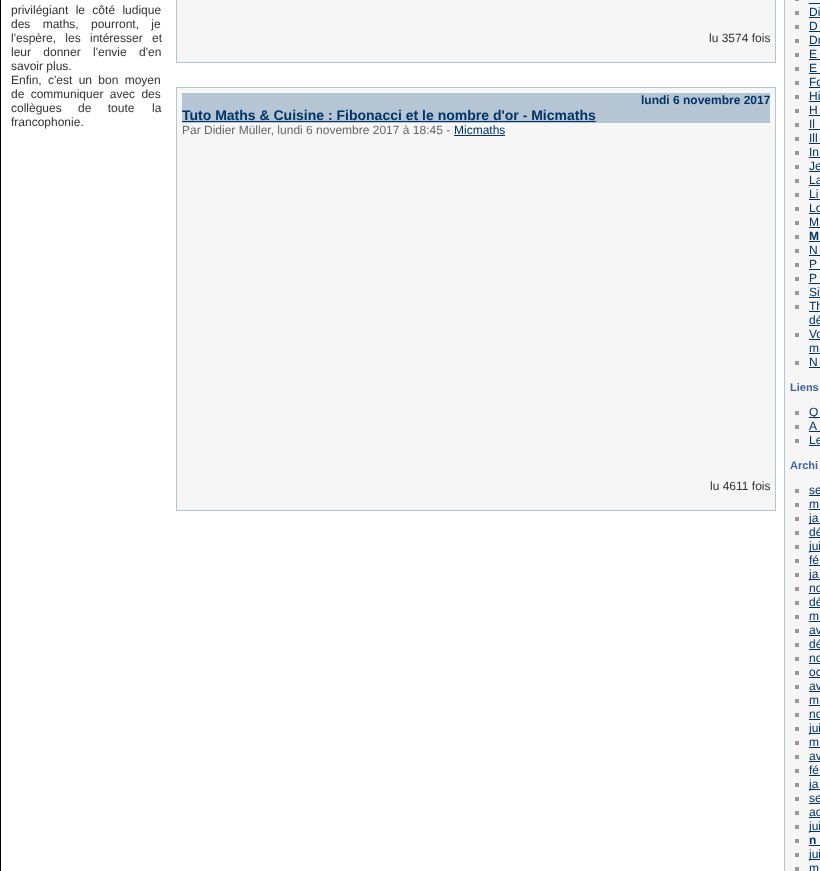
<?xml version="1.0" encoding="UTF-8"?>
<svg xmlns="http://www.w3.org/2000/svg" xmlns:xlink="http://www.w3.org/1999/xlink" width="820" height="871">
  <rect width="100%" height="100%" fill="#ffffff" />
  <rect x="0.5" y="-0.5" width="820" height="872" fill="none" stroke="#000000" />
  <rect x="176.5" y="-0.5" width="599" height="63" fill="#f6f6f6" stroke="#b5c5d4" />
  <rect x="176.5" y="87.5" width="599" height="423" fill="#f6f6f6" stroke="#b5c5d4" />
  <rect x="182" y="93" width="588" height="30" fill="#b5c5d4" />
  <rect x="182" y="121" width="414" height="1" fill="#003366" />
  <rect x="454" y="135" width="51" height="1" fill="#003366" />
  <rect x="784.5" y="-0.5" width="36" height="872" fill="#f6f6f6" stroke="#b5c5d4" />
  <rect x="795" width="4" height="1" fill="#999999" />
  <rect x="809" y="3" width="11" height="1" fill="#003366" />
  <rect x="795" y="11" width="4" height="4" fill="#999999" />
  <rect x="809" y="17" width="11" height="1" fill="#003366" />
  <rect x="795" y="25" width="4" height="4" fill="#999999" />
  <rect x="809" y="31" width="11" height="1" fill="#003366" />
  <rect x="795" y="39" width="4" height="4" fill="#999999" />
  <rect x="809" y="45" width="11" height="1" fill="#003366" />
  <rect x="795" y="53" width="4" height="4" fill="#999999" />
  <rect x="809" y="59" width="11" height="1" fill="#003366" />
  <rect x="795" y="67" width="4" height="4" fill="#999999" />
  <rect x="809" y="73" width="11" height="1" fill="#003366" />
  <rect x="795" y="81" width="4" height="4" fill="#999999" />
  <rect x="809" y="87" width="11" height="1" fill="#003366" />
  <rect x="795" y="95" width="4" height="4" fill="#999999" />
  <rect x="809" y="101" width="11" height="1" fill="#003366" />
  <rect x="795" y="109" width="4" height="4" fill="#999999" />
  <rect x="809" y="115" width="11" height="1" fill="#003366" />
  <rect x="795" y="123" width="4" height="4" fill="#999999" />
  <rect x="809" y="129" width="11" height="1" fill="#003366" />
  <rect x="795" y="137" width="4" height="4" fill="#999999" />
  <rect x="809" y="143" width="11" height="1" fill="#003366" />
  <rect x="795" y="151" width="4" height="4" fill="#999999" />
  <rect x="809" y="157" width="11" height="1" fill="#003366" />
  <rect x="795" y="165" width="4" height="4" fill="#999999" />
  <rect x="809" y="171" width="11" height="1" fill="#003366" />
  <rect x="795" y="179" width="4" height="4" fill="#999999" />
  <rect x="809" y="185" width="11" height="1" fill="#003366" />
  <rect x="795" y="193" width="4" height="4" fill="#999999" />
  <rect x="809" y="199" width="11" height="1" fill="#003366" />
  <rect x="795" y="207" width="4" height="4" fill="#999999" />
  <rect x="809" y="213" width="11" height="1" fill="#003366" />
  <rect x="795" y="221" width="4" height="4" fill="#999999" />
  <rect x="809" y="227" width="11" height="1" fill="#003366" />
  <rect x="795" y="235" width="4" height="4" fill="#999999" />
  <rect x="809" y="241" width="11" height="1" fill="#003366" />
  <rect x="795" y="249" width="4" height="4" fill="#999999" />
  <rect x="809" y="255" width="11" height="1" fill="#003366" />
  <rect x="795" y="263" width="4" height="4" fill="#999999" />
  <rect x="809" y="269" width="11" height="1" fill="#003366" />
  <rect x="795" y="277" width="4" height="4" fill="#999999" />
  <rect x="809" y="283" width="11" height="1" fill="#003366" />
  <rect x="795" y="291" width="4" height="4" fill="#999999" />
  <rect x="809" y="297" width="11" height="1" fill="#003366" />
  <rect x="795" y="305" width="4" height="4" fill="#999999" />
  <rect x="809" y="311" width="11" height="1" fill="#003366" />
  <rect x="809" y="325" width="11" height="1" fill="#003366" />
  <rect x="795" y="333" width="4" height="4" fill="#999999" />
  <rect x="809" y="339" width="11" height="1" fill="#003366" />
  <rect x="809" y="353" width="11" height="1" fill="#003366" />
  <rect x="795" y="361" width="4" height="4" fill="#999999" />
  <rect x="809" y="367" width="11" height="1" fill="#003366" />
  <rect x="795" y="411" width="4" height="4" fill="#999999" />
  <rect x="809" y="417" width="11" height="1" fill="#003366" />
  <rect x="795" y="425" width="4" height="4" fill="#999999" />
  <rect x="809" y="431" width="11" height="1" fill="#003366" />
  <rect x="795" y="439" width="4" height="4" fill="#999999" />
  <rect x="809" y="445" width="11" height="1" fill="#003366" />
  <rect x="795" y="489" width="4" height="4" fill="#999999" />
  <rect x="809" y="495" width="11" height="1" fill="#003366" />
  <rect x="795" y="503" width="4" height="4" fill="#999999" />
  <rect x="809" y="509" width="11" height="1" fill="#003366" />
  <rect x="795" y="517" width="4" height="4" fill="#999999" />
  <rect x="809" y="523" width="11" height="1" fill="#003366" />
  <rect x="795" y="531" width="4" height="4" fill="#999999" />
  <rect x="809" y="537" width="11" height="1" fill="#003366" />
  <rect x="795" y="545" width="4" height="4" fill="#999999" />
  <rect x="809" y="551" width="11" height="1" fill="#003366" />
  <rect x="795" y="559" width="4" height="4" fill="#999999" />
  <rect x="809" y="565" width="11" height="1" fill="#003366" />
  <rect x="795" y="573" width="4" height="4" fill="#999999" />
  <rect x="809" y="579" width="11" height="1" fill="#003366" />
  <rect x="795" y="587" width="4" height="4" fill="#999999" />
  <rect x="809" y="593" width="11" height="1" fill="#003366" />
  <rect x="795" y="601" width="4" height="4" fill="#999999" />
  <rect x="809" y="607" width="11" height="1" fill="#003366" />
  <rect x="795" y="615" width="4" height="4" fill="#999999" />
  <rect x="809" y="621" width="11" height="1" fill="#003366" />
  <rect x="795" y="629" width="4" height="4" fill="#999999" />
  <rect x="809" y="635" width="11" height="1" fill="#003366" />
  <rect x="795" y="643" width="4" height="4" fill="#999999" />
  <rect x="809" y="649" width="11" height="1" fill="#003366" />
  <rect x="795" y="657" width="4" height="4" fill="#999999" />
  <rect x="809" y="663" width="11" height="1" fill="#003366" />
  <rect x="795" y="671" width="4" height="4" fill="#999999" />
  <rect x="809" y="677" width="11" height="1" fill="#003366" />
  <rect x="795" y="685" width="4" height="4" fill="#999999" />
  <rect x="809" y="691" width="11" height="1" fill="#003366" />
  <rect x="795" y="699" width="4" height="4" fill="#999999" />
  <rect x="809" y="705" width="11" height="1" fill="#003366" />
  <rect x="795" y="713" width="4" height="4" fill="#999999" />
  <rect x="809" y="719" width="11" height="1" fill="#003366" />
  <rect x="795" y="727" width="4" height="4" fill="#999999" />
  <rect x="809" y="733" width="11" height="1" fill="#003366" />
  <rect x="795" y="741" width="4" height="4" fill="#999999" />
  <rect x="809" y="747" width="11" height="1" fill="#003366" />
  <rect x="795" y="755" width="4" height="4" fill="#999999" />
  <rect x="809" y="761" width="11" height="1" fill="#003366" />
  <rect x="795" y="769" width="4" height="4" fill="#999999" />
  <rect x="809" y="775" width="11" height="1" fill="#003366" />
  <rect x="795" y="783" width="4" height="4" fill="#999999" />
  <rect x="809" y="789" width="11" height="1" fill="#003366" />
  <rect x="795" y="797" width="4" height="4" fill="#999999" />
  <rect x="809" y="803" width="11" height="1" fill="#003366" />
  <rect x="795" y="811" width="4" height="4" fill="#999999" />
  <rect x="809" y="817" width="11" height="1" fill="#003366" />
  <rect x="795" y="825" width="4" height="4" fill="#999999" />
  <rect x="809" y="831" width="11" height="1" fill="#003366" />
  <rect x="795" y="839" width="4" height="4" fill="#999999" />
  <rect x="809" y="845" width="11" height="1" fill="#003366" />
  <rect x="795" y="853" width="4" height="4" fill="#999999" />
  <rect x="809" y="859" width="11" height="1" fill="#003366" />
  <rect x="795" y="867" width="4" height="4" fill="#999999" />
  <text x="11" y="14" word-spacing="4" style="font-family: Liberation Sans; font-size: 12px; fill: #333333">privilégiant le côté ludique</text>
  <text x="11" y="28" word-spacing="9" style="font-family: Liberation Sans; font-size: 12px; fill: #333333">des maths,</text>
  <text x="91" y="28" word-spacing="9" style="font-family: Liberation Sans; font-size: 12px; fill: #333333">pourront, je</text>
  <text x="11" y="42" word-spacing="6" style="font-family: Liberation Sans; font-size: 12px; fill: #333333">l'espère, les intéresser et</text>
  <text x="11" y="56" word-spacing="9" style="font-family: Liberation Sans; font-size: 12px; fill: #333333">leur donner l'envie d'en</text>
  <text x="11" y="70" style="font-family: Liberation Sans; font-size: 12px; fill: #333333">savoir plus.</text>
  <text x="11" y="84" word-spacing="3" style="font-family: Liberation Sans; font-size: 12px; fill: #333333">Enfin, c'est un bon moyen</text>
  <text x="11" y="98" word-spacing="3" style="font-family: Liberation Sans; font-size: 12px; fill: #333333">de communiquer avec des</text>
  <text x="11" y="112" word-spacing="13" style="font-family: Liberation Sans; font-size: 12px; fill: #333333">collègues de toute</text>
  <text x="152" y="112" style="font-family: Liberation Sans; font-size: 12px; fill: #333333">la</text>
  <text x="11" y="126" style="font-family: Liberation Sans; font-size: 12px; fill: #333333">francophonie.</text>
  <text x="709" y="42" style="font-family: Liberation Sans; font-size: 12px; fill: #333333">lu 3574 fois</text>
  <text x="641" y="104" style="font-family: Liberation Sans; font-size: 12px; font-weight: bold; fill: #003366">lundi 6 novembre 2017</text>
  <text x="182" y="120" style="font-family: Liberation Sans; font-size: 14px; font-weight: bold; fill: #003366">Tuto Maths &amp; Cuisine : Fibonacci et le nombre d'or - Micmaths</text>
  <text x="182" y="134" style="font-family: Liberation Sans; font-size: 12px; fill: #666666">Par Didier Müller, lundi 6 novembre 2017 à 18:45 -</text>
  <text x="454" y="134" style="font-family: Liberation Sans; font-size: 12px; fill: #003366">Micmaths</text>
  <text x="710" y="490" style="font-family: Liberation Sans; font-size: 12px; fill: #333333">lu 4611 fois</text>
  <text x="809" y="16" style="font-family: Liberation Sans; font-size: 12px; fill: #003366">Di</text>
  <text x="809" y="30" style="font-family: Liberation Sans; font-size: 12px; fill: #003366">D</text>
  <text x="809" y="44" style="font-family: Liberation Sans; font-size: 12px; fill: #003366">Dr</text>
  <text x="809" y="58" style="font-family: Liberation Sans; font-size: 12px; fill: #003366">E</text>
  <text x="809" y="72" style="font-family: Liberation Sans; font-size: 12px; fill: #003366">E</text>
  <text x="809" y="86" style="font-family: Liberation Sans; font-size: 12px; fill: #003366">Fo</text>
  <text x="809" y="100" style="font-family: Liberation Sans; font-size: 12px; fill: #003366">Hi</text>
  <text x="809" y="114" style="font-family: Liberation Sans; font-size: 12px; fill: #003366">H</text>
  <text x="809" y="128" style="font-family: Liberation Sans; font-size: 12px; fill: #003366">Il</text>
  <text x="809" y="142" style="font-family: Liberation Sans; font-size: 12px; fill: #003366">Ill</text>
  <text x="809" y="156" style="font-family: Liberation Sans; font-size: 12px; fill: #003366">In</text>
  <text x="809" y="170" style="font-family: Liberation Sans; font-size: 12px; fill: #003366">Je</text>
  <text x="809" y="184" style="font-family: Liberation Sans; font-size: 12px; fill: #003366">La</text>
  <text x="809" y="198" style="font-family: Liberation Sans; font-size: 12px; fill: #003366">Li</text>
  <text x="809" y="212" style="font-family: Liberation Sans; font-size: 12px; fill: #003366">Lo</text>
  <text x="809" y="226" style="font-family: Liberation Sans; font-size: 12px; fill: #003366">M</text>
  <text x="809" y="240" style="font-family: Liberation Sans; font-size: 12px; font-weight: bold; fill: #003366">M</text>
  <text x="809" y="254" style="font-family: Liberation Sans; font-size: 12px; fill: #003366">N</text>
  <text x="809" y="268" style="font-family: Liberation Sans; font-size: 12px; fill: #003366">P</text>
  <text x="809" y="282" style="font-family: Liberation Sans; font-size: 12px; fill: #003366">P</text>
  <text x="809" y="296" style="font-family: Liberation Sans; font-size: 12px; fill: #003366">Si</text>
  <text x="809" y="310" style="font-family: Liberation Sans; font-size: 12px; fill: #003366">Th</text>
  <text x="809" y="324" style="font-family: Liberation Sans; font-size: 12px; fill: #003366">dé</text>
  <text x="809" y="338" style="font-family: Liberation Sans; font-size: 12px; fill: #003366">Vo</text>
  <text x="809" y="352" style="font-family: Liberation Sans; font-size: 12px; fill: #003366">m</text>
  <text x="809" y="366" style="font-family: Liberation Sans; font-size: 12px; fill: #003366">N</text>
  <text x="790" y="391" style="font-family: Liberation Sans; font-size: 11px; font-weight: bold; fill: #4364a1">Liens</text>
  <text x="809" y="416" style="font-family: Liberation Sans; font-size: 12px; fill: #003366">Q</text>
  <text x="809" y="430" style="font-family: Liberation Sans; font-size: 12px; fill: #003366">A</text>
  <text x="809" y="444" style="font-family: Liberation Sans; font-size: 12px; fill: #003366">Le</text>
  <text x="790" y="469" style="font-family: Liberation Sans; font-size: 11px; font-weight: bold; fill: #4364a1">Archi</text>
  <text x="809" y="494" style="font-family: Liberation Sans; font-size: 12px; fill: #003366">se</text>
  <text x="809" y="508" style="font-family: Liberation Sans; font-size: 12px; fill: #003366">m</text>
  <text x="809" y="522" style="font-family: Liberation Sans; font-size: 12px; fill: #003366">ja</text>
  <text x="809" y="536" style="font-family: Liberation Sans; font-size: 12px; fill: #003366">dé</text>
  <text x="809" y="550" style="font-family: Liberation Sans; font-size: 12px; fill: #003366">jui</text>
  <text x="809" y="564" style="font-family: Liberation Sans; font-size: 12px; fill: #003366">fé</text>
  <text x="809" y="578" style="font-family: Liberation Sans; font-size: 12px; fill: #003366">ja</text>
  <text x="809" y="592" style="font-family: Liberation Sans; font-size: 12px; fill: #003366">no</text>
  <text x="809" y="606" style="font-family: Liberation Sans; font-size: 12px; fill: #003366">dé</text>
  <text x="809" y="620" style="font-family: Liberation Sans; font-size: 12px; fill: #003366">m</text>
  <text x="809" y="634" style="font-family: Liberation Sans; font-size: 12px; fill: #003366">av</text>
  <text x="809" y="648" style="font-family: Liberation Sans; font-size: 12px; fill: #003366">dé</text>
  <text x="809" y="662" style="font-family: Liberation Sans; font-size: 12px; fill: #003366">no</text>
  <text x="809" y="676" style="font-family: Liberation Sans; font-size: 12px; fill: #003366">oc</text>
  <text x="809" y="690" style="font-family: Liberation Sans; font-size: 12px; fill: #003366">av</text>
  <text x="809" y="704" style="font-family: Liberation Sans; font-size: 12px; fill: #003366">m</text>
  <text x="809" y="718" style="font-family: Liberation Sans; font-size: 12px; fill: #003366">no</text>
  <text x="809" y="732" style="font-family: Liberation Sans; font-size: 12px; fill: #003366">jui</text>
  <text x="809" y="746" style="font-family: Liberation Sans; font-size: 12px; fill: #003366">m</text>
  <text x="809" y="760" style="font-family: Liberation Sans; font-size: 12px; fill: #003366">av</text>
  <text x="809" y="774" style="font-family: Liberation Sans; font-size: 12px; fill: #003366">fé</text>
  <text x="809" y="788" style="font-family: Liberation Sans; font-size: 12px; fill: #003366">ja</text>
  <text x="809" y="802" style="font-family: Liberation Sans; font-size: 12px; fill: #003366">se</text>
  <text x="809" y="816" style="font-family: Liberation Sans; font-size: 12px; fill: #003366">ao</text>
  <text x="809" y="830" style="font-family: Liberation Sans; font-size: 12px; fill: #003366">jui</text>
  <text x="809" y="844" style="font-family: Liberation Sans; font-size: 12px; font-weight: bold; fill: #003366">n</text>
  <text x="809" y="858" style="font-family: Liberation Sans; font-size: 12px; fill: #003366">jui</text>
  <text x="809" y="872" style="font-family: Liberation Sans; font-size: 12px; fill: #003366">m</text>
</svg>
